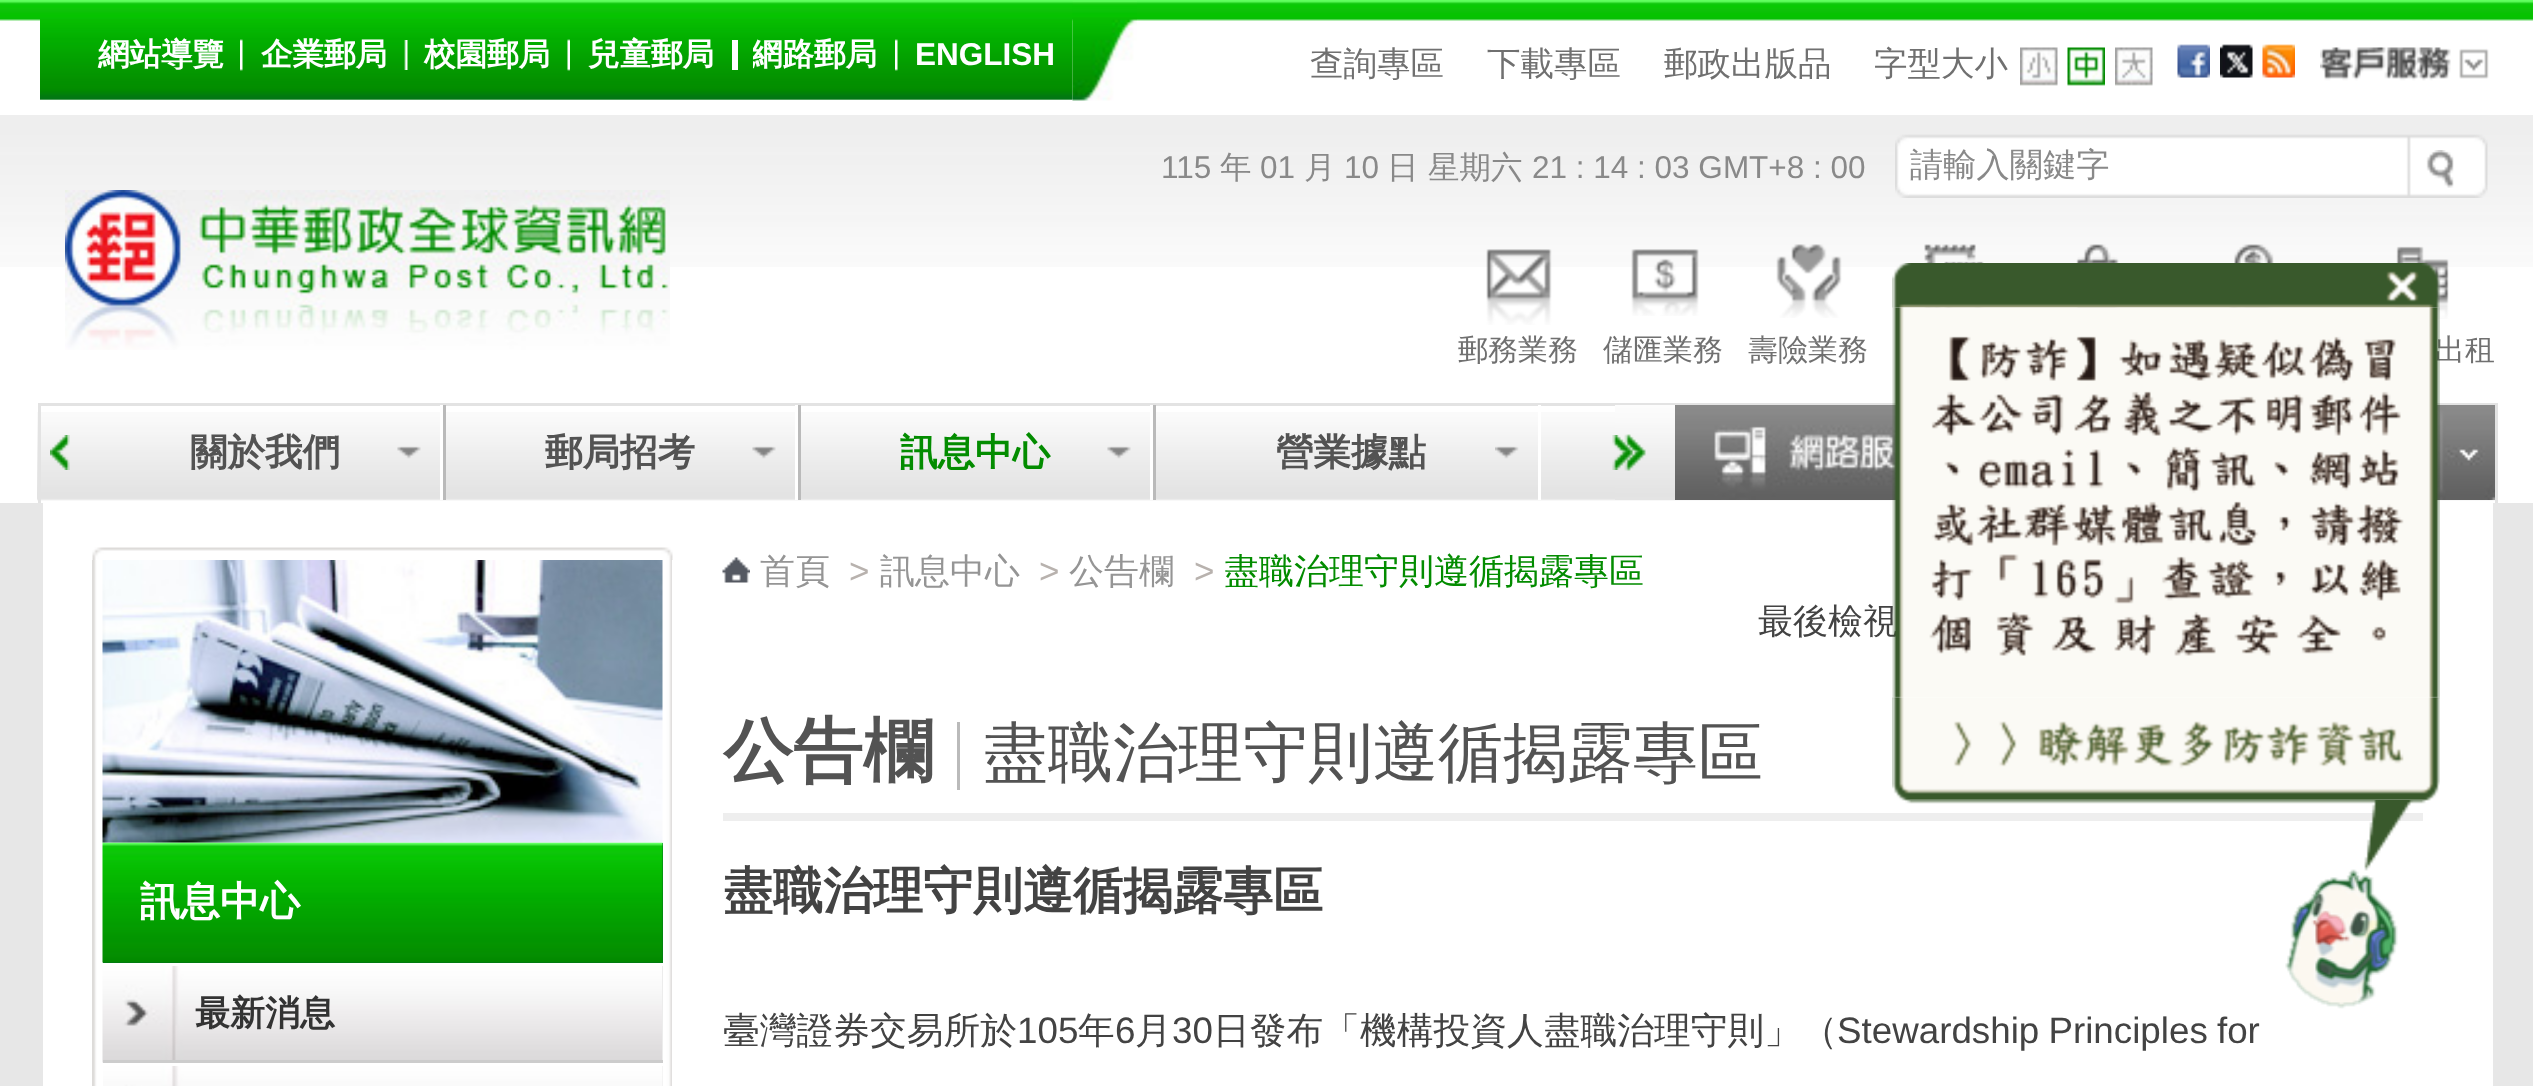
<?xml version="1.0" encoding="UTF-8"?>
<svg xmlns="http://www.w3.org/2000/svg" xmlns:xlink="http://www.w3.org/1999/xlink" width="2533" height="1086">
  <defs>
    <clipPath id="clip1"><rect x="753" y="33" width="125" height="45" /></clipPath>
  </defs>
  <rect width="100%" height="100%" fill="#ffffff" />
  <image x="0" y="0" width="2533" height="21" xlink:href="image1.png" />
  <image x="40" y="19" width="1033" height="81" xlink:href="image2.png" />
  <image x="240" y="39" width="3" height="32" xlink:href="image3.png" />
  <image x="404" y="40" width="4" height="30" xlink:href="image4.png" />
  <image x="567" y="39" width="3" height="32" xlink:href="image5.png" />
  <rect x="732" y="40" width="6" height="30" fill="#ffffff" />
  <image x="895" y="39" width="3" height="32" xlink:href="image3.png" />
  <image x="1072" y="1" width="65" height="100" xlink:href="image6.png" />
  <image x="2020" y="47" width="38" height="39" xlink:href="image7.png" />
  <image x="2067" y="47" width="38" height="39" xlink:href="image8.png" />
  <image x="2115" y="47" width="38" height="39" xlink:href="image9.png" />
  <image x="2177" y="44" width="33" height="34" xlink:href="image10.png" />
  <image x="2220" y="44" width="33" height="34" xlink:href="image11.png" />
  <image x="2262" y="44" width="33" height="34" xlink:href="image12.png" />
  <image x="2320" y="47" width="169" height="34" xlink:href="image13.png" />
  <image x="0" y="115" width="2533" height="152" xlink:href="image14.png" />
  <image x="1895" y="134" width="593" height="64" xlink:href="image15.png" />
  <image x="2426" y="150" width="28" height="38" xlink:href="image16.png" />
  <image x="65" y="190" width="605" height="160" xlink:href="image17.png" />
  <image x="1924" y="244" width="60" height="64" xlink:href="image18.png" />
  <image x="2076" y="244" width="43" height="64" xlink:href="image19.png" />
  <image x="2229" y="244" width="45" height="64" xlink:href="image20.png" />
  <image x="1486" y="249" width="66" height="76" xlink:href="image21.png" />
  <image x="1631" y="249" width="68" height="67" xlink:href="image22.png" />
  <image x="1776" y="244" width="66" height="74" xlink:href="image23.png" />
  <image x="2394" y="246" width="55" height="73" xlink:href="image24.png" />
  <image x="37" y="412" width="2458" height="89" xlink:href="image25.png" />
  <rect x="38" y="403" width="2460" height="3" fill="#e3e3e3" />
  <rect x="2495" y="403" width="3" height="100" fill="#e3e3e3" />
  <rect x="38" y="403" width="3" height="100" fill="#e3e3e3" />
  <image x="50" y="435" width="20" height="35" xlink:href="image26.png" />
  <rect x="440" y="405" width="3" height="95" fill="#ffffff" />
  <image x="397" y="446" width="24" height="13" xlink:href="image27.png" />
  <rect x="795" y="405" width="3" height="95" fill="#ffffff" />
  <rect x="443" y="405" width="3" height="95" fill="#bababa" />
  <image x="752" y="446" width="24" height="13" xlink:href="image27.png" />
  <rect x="1150" y="405" width="3" height="95" fill="#ffffff" />
  <rect x="798" y="405" width="3" height="95" fill="#bababa" />
  <image x="1107" y="446" width="24" height="13" xlink:href="image28.png" />
  <rect x="1538" y="405" width="3" height="95" fill="#ffffff" />
  <rect x="1153" y="405" width="3" height="95" fill="#bababa" />
  <image x="1495" y="446" width="24" height="13" xlink:href="image29.png" />
  <image x="1615" y="405" width="60" height="95" xlink:href="image30.png" />
  <image x="1624" y="434" width="22" height="37" xlink:href="image31.png" />
  <image x="1612" y="435" width="21" height="35" xlink:href="image32.png" />
  <image x="1675" y="405" width="221" height="95" xlink:href="image33.png" />
  <image x="2436" y="405" width="59" height="95" xlink:href="image34.png" />
  <rect y="503" width="2533" height="583" fill="#e7e7e7" />
  <rect x="43" y="503" width="2450" height="583" fill="#ffffff" />
  <image x="92" y="547" width="581" height="13" xlink:href="image35.png" />
  <image x="92" y="560" width="580" height="526" xlink:href="image36.png" />
  <rect x="103" y="843" width="560" height="120" fill="#01731c" />
  <image x="102" y="842" width="561" height="121" xlink:href="image38.png" />
  <image x="102" y="560" width="561" height="283" xlink:href="image37.png" />
  <rect x="662" y="966" width="1" height="94" fill="#ececec" />
  <image x="102" y="965" width="560" height="98" xlink:href="image39.png" />
  <rect x="171" y="965" width="8" height="1" fill="#ffffff" />
  <rect x="103" y="1060" width="560" height="3" fill="#cccccc" />
  <rect x="662" y="1066" width="1" height="20" fill="#ececec" />
  <image x="103" y="1066" width="560" height="20" xlink:href="image40.png" />
  <image x="722" y="557" width="28" height="26" xlink:href="image41.png" />
  <rect x="723" y="813" width="1700" height="8" fill="#eeeeee" />
  <rect x="957" y="722" width="3" height="68" fill="#bababa" />
  <image x="1892" y="263" width="548" height="45" xlink:href="image42.png" />
  <image x="2285" y="869" width="113" height="140" xlink:href="image46.png" />
  <text x="98" y="65" style="font-family: WenQuanYi Zen Hei; font-size: 31.5px; font-weight: bold; fill: #ffffff">網站導覽</text>
  <text x="261" y="65" style="font-family: WenQuanYi Zen Hei; font-size: 31.5px; font-weight: bold; fill: #ffffff">企業郵局</text>
  <text x="424" y="65" style="font-family: WenQuanYi Zen Hei; font-size: 31.5px; font-weight: bold; fill: #ffffff">校園郵局</text>
  <text x="588" y="65" style="font-family: WenQuanYi Zen Hei; font-size: 31.5px; font-weight: bold; fill: #ffffff">兒童郵局</text>
  <g clip-path="url(#clip1)">
    <text x="751" y="65" style="font-family: WenQuanYi Zen Hei; font-size: 31.5px; font-weight: bold; fill: #ffffff">網路郵局</text>
  </g>
  <text x="915" y="65" style="font-family: Liberation Sans; font-size: 31.5px; font-weight: bold; fill: #ffffff">ENGLISH</text>
  <text x="1310" y="75" style="font-family: WenQuanYi Zen Hei; font-size: 33.5px; font-weight: 500; fill: #707070">查詢專區</text>
  <text x="1487" y="75" style="font-family: WenQuanYi Zen Hei; font-size: 33.5px; font-weight: 500; fill: #707070">下載專區</text>
  <text x="1664" y="75" style="font-family: WenQuanYi Zen Hei; font-size: 33.5px; font-weight: 500; fill: #707070">郵政出版品</text>
  <text x="1874" y="75" style="font-family: WenQuanYi Zen Hei; font-size: 33.5px; font-weight: 500; fill: #707070">字型大小</text>
  <text x="1161" y="178" style="font-family: Liberation Sans; font-size: 31.5px; fill: #898989">115</text>
  <text x="1220" y="178" style="font-family: WenQuanYi Zen Hei; font-size: 31.5px; font-weight: 500; fill: #898989">年</text>
  <text x="1260" y="178" style="font-family: Liberation Sans; font-size: 31.5px; fill: #898989">01</text>
  <text x="1304" y="178" style="font-family: WenQuanYi Zen Hei; font-size: 31.5px; font-weight: 500; fill: #898989">月</text>
  <text x="1344" y="178" style="font-family: Liberation Sans; font-size: 31.5px; fill: #898989">10</text>
  <text x="1387" y="178" style="font-family: WenQuanYi Zen Hei; font-size: 31.5px; font-weight: 500; fill: #898989">日 星期六</text>
  <text x="1532" y="178" style="font-family: Liberation Sans; font-size: 31.5px; fill: #898989">21 : 14 : 03 GMT+8 : 00</text>
  <text x="1910" y="176" style="font-family: WenQuanYi Zen Hei; font-size: 33.25px; font-weight: 500; fill: #898989">請輸入關鍵字</text>
  <text x="1458" y="360" style="font-family: WenQuanYi Zen Hei; font-size: 30px; font-weight: 500; fill: #707070">郵務業務</text>
  <text x="1603" y="360" style="font-family: WenQuanYi Zen Hei; font-size: 30px; font-weight: 500; fill: #707070">儲匯業務</text>
  <text x="1748" y="360" style="font-family: WenQuanYi Zen Hei; font-size: 30px; font-weight: 500; fill: #707070">壽險業務</text>
  <text x="2435" y="360" style="font-family: WenQuanYi Zen Hei; font-size: 30px; font-weight: 500; fill: #707070">出租</text>
  <text x="190" y="465" style="font-family: WenQuanYi Zen Hei; font-size: 37.5px; font-weight: bold; fill: #535353">關於我們</text>
  <text x="545" y="465" style="font-family: WenQuanYi Zen Hei; font-size: 37.5px; font-weight: bold; fill: #535353">郵局招考</text>
  <text x="900" y="465" style="font-family: WenQuanYi Zen Hei; font-size: 37.5px; font-weight: bold; fill: #038c00">訊息中心</text>
  <text x="1276" y="465" style="font-family: WenQuanYi Zen Hei; font-size: 37.5px; font-weight: bold; fill: #535353">營業據點</text>
  <text x="140" y="915" style="font-family: WenQuanYi Zen Hei; font-size: 40px; font-weight: bold; fill: #ffffff">訊息中心</text>
  <text x="195" y="1025" style="font-family: WenQuanYi Zen Hei; font-size: 35px; font-weight: bold; fill: #333333">最新消息</text>
  <text x="760" y="583" style="font-family: WenQuanYi Zen Hei; font-size: 35px; font-weight: 500; fill: #959595">首頁</text>
  <text x="849" y="583" style="font-family: Liberation Sans; font-size: 35px; fill: #b8b2ae">&gt;</text>
  <text x="880" y="583" style="font-family: WenQuanYi Zen Hei; font-size: 35px; font-weight: 500; fill: #959595">訊息中心</text>
  <text x="1039" y="583" style="font-family: Liberation Sans; font-size: 35px; fill: #b8b2ae">&gt;</text>
  <text x="1069" y="583" style="font-family: WenQuanYi Zen Hei; font-size: 35px; font-weight: 500; fill: #959595">公告欄</text>
  <text x="1194" y="583" style="font-family: Liberation Sans; font-size: 35px; fill: #b8b2ae">&gt;</text>
  <text x="1224" y="583" style="font-family: WenQuanYi Zen Hei; font-size: 35px; font-weight: 500; fill: #038c00">盡職治理守則遵循揭露專區</text>
  <text x="1758" y="633" style="font-family: WenQuanYi Zen Hei; font-size: 35px; font-weight: 500; fill: #434343">最後檢視</text>
  <text x="723" y="775" style="font-family: WenQuanYi Zen Hei; font-size: 70px; font-weight: bold; fill: #535353">公告欄</text>
  <text x="983" y="775" style="font-family: WenQuanYi Zen Hei; font-size: 65px; font-weight: 500; fill: #535353">盡職治理守則遵循揭露專區</text>
  <text x="723" y="908" style="font-family: WenQuanYi Zen Hei; font-size: 50px; font-weight: bold; fill: #434343">盡職治理守則遵循揭露專區</text>
  <text x="723" y="1043" style="font-family: WenQuanYi Zen Hei; font-size: 36.75px; font-weight: 500; fill: #434343">臺灣證券交易所於</text>
  <text x="1017" y="1043" style="font-family: Liberation Sans; font-size: 36.75px; fill: #434343">105</text>
  <text x="1078" y="1043" style="font-family: WenQuanYi Zen Hei; font-size: 36.75px; font-weight: 500; fill: #434343">年</text>
  <text x="1115" y="1043" style="font-family: Liberation Sans; font-size: 36.75px; fill: #434343">6</text>
  <text x="1135" y="1043" style="font-family: WenQuanYi Zen Hei; font-size: 36.75px; font-weight: 500; fill: #434343">月</text>
  <text x="1172" y="1043" style="font-family: Liberation Sans; font-size: 36.75px; fill: #434343">30</text>
  <text x="1213" y="1043" style="font-family: WenQuanYi Zen Hei; font-size: 36.75px; font-weight: 500; fill: #434343">日發布「機構投資人盡職治理守則」（</text>
  <text x="1837" y="1043" word-spacing="-1" style="font-family: Liberation Sans; font-size: 36.75px; fill: #434343">Stewardship Principles for</text>
  <image x="1892" y="307" width="548" height="392" xlink:href="image43.png" />
  <image x="1892" y="697" width="548" height="104" xlink:href="image44.png" />
  <image x="1905" y="800" width="521" height="71" xlink:href="image45.png" />
</svg>
